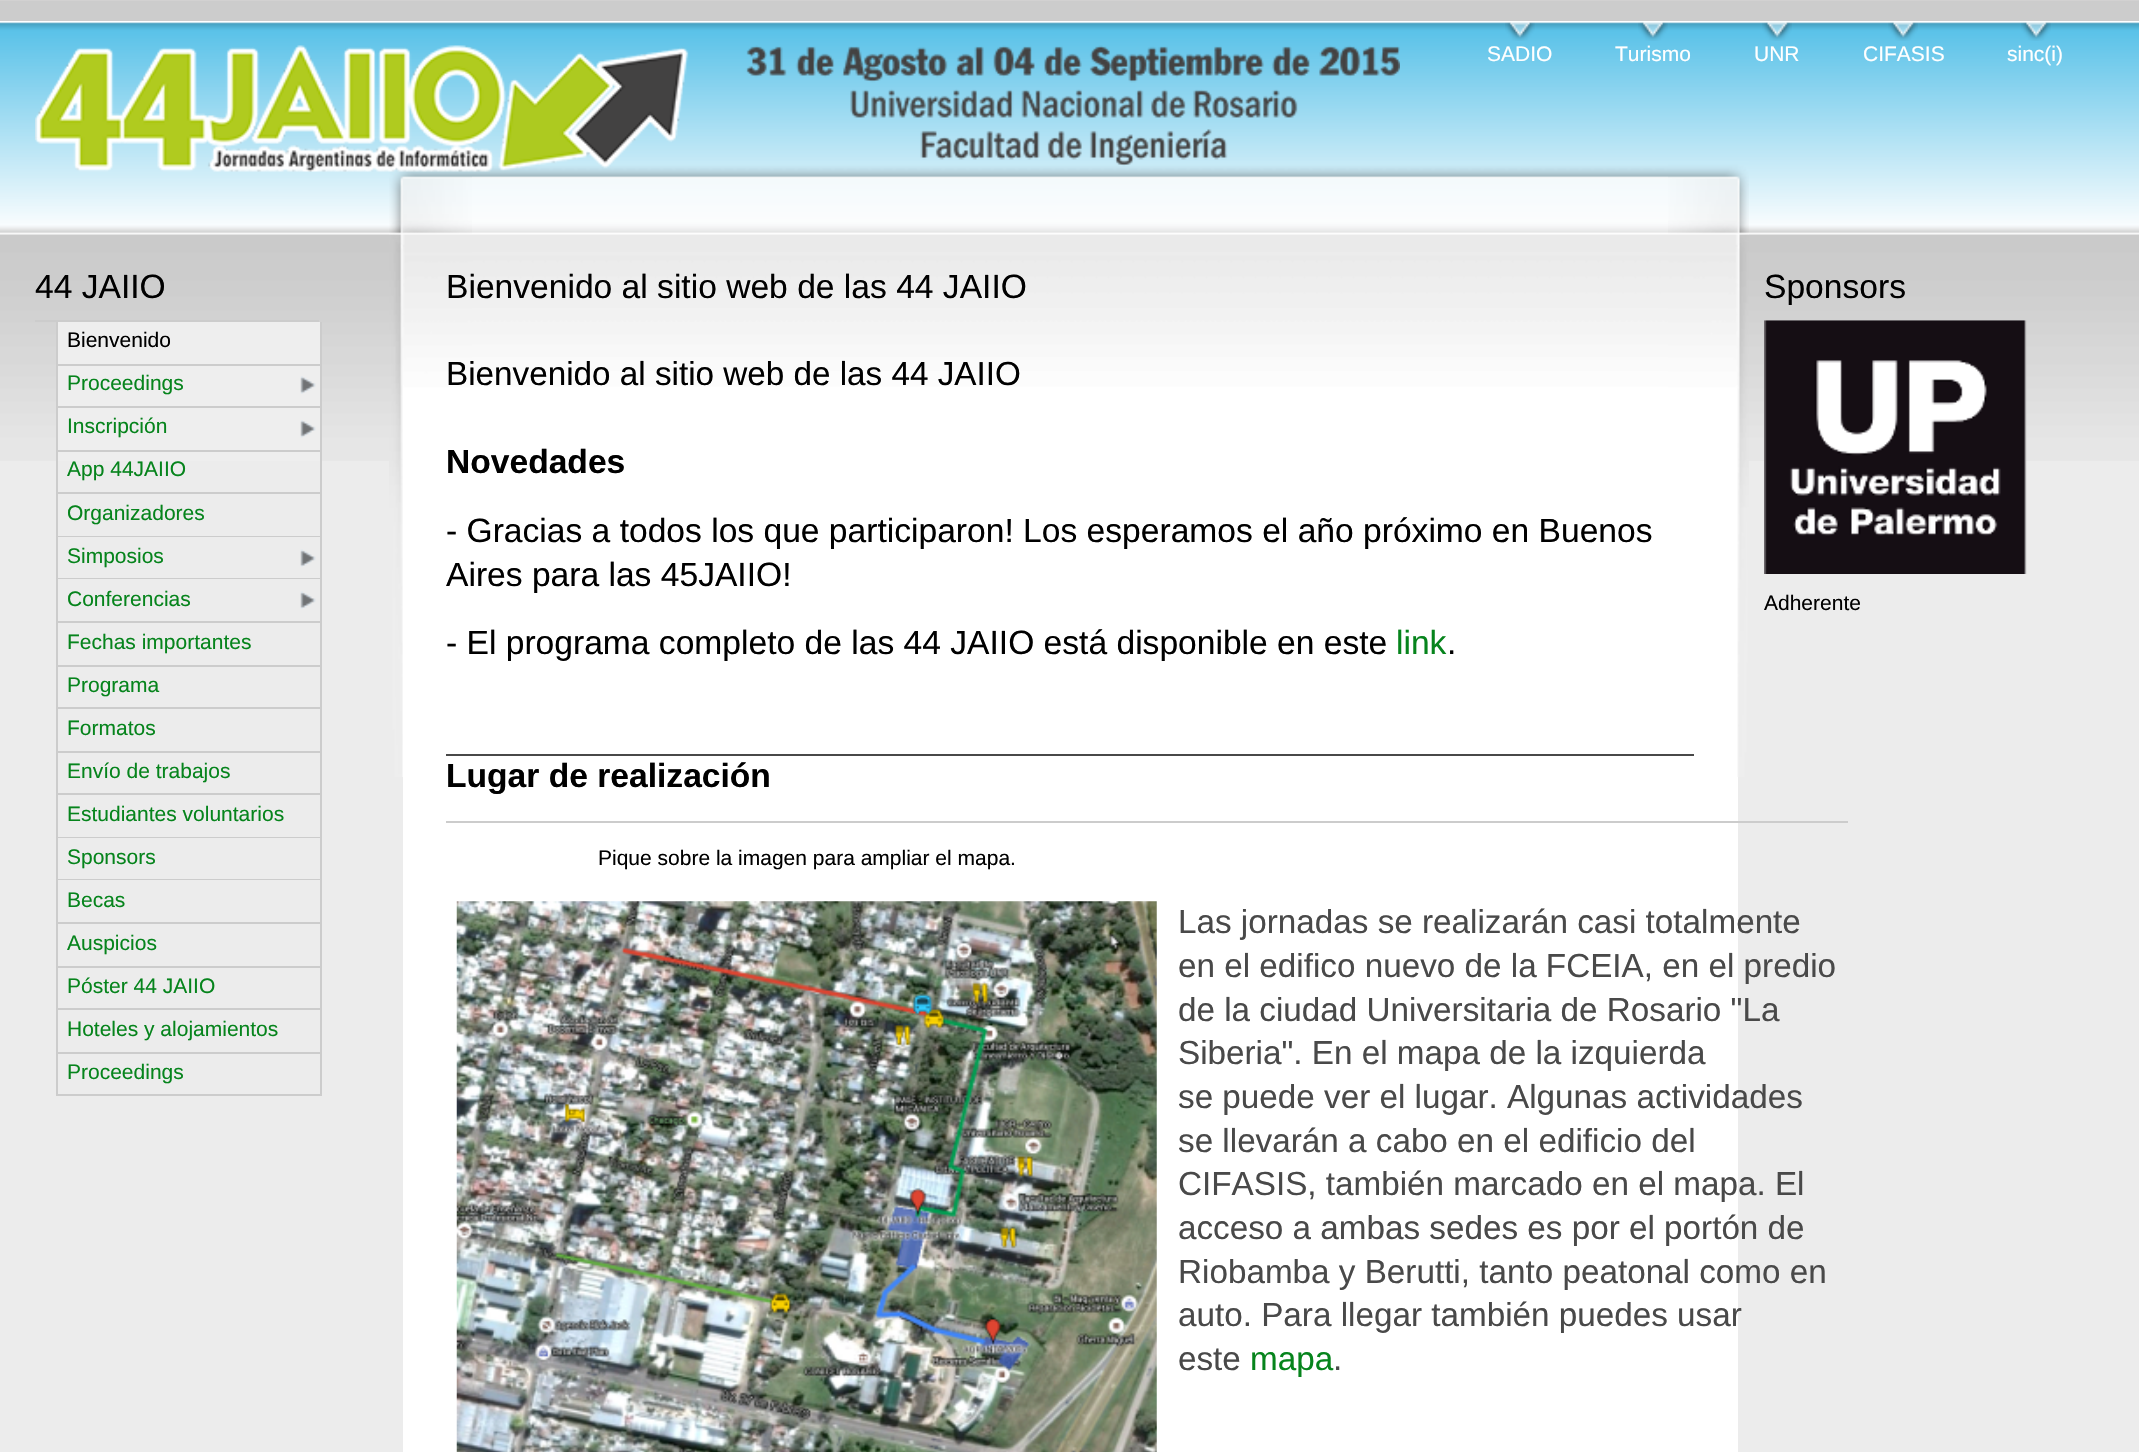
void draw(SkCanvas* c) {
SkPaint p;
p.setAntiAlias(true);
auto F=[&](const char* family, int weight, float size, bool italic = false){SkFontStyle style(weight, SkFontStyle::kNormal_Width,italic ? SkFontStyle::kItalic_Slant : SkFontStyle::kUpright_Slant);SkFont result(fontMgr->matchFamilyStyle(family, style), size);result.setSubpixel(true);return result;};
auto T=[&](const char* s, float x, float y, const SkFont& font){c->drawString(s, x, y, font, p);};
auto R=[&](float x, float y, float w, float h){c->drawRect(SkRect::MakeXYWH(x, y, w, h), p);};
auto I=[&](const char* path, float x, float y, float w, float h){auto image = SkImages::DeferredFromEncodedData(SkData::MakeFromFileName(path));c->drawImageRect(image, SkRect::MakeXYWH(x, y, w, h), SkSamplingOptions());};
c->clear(0xffececec);
p.setColor(0xffd2d1d1);
R(0,0,2139,1);
p.setColor(0xffcccccc);
R(0,1,2139,20);
I("1.png",0,21,2139,440);
I("11.png",472,161,1196,350);
p.setColor(0xffffffff);
R(403,511,1335,941);
I("13.png",389,168,83,609);
I("2.png",35,45,1365,127);
I("3.png",1505,22,30,19);
auto f1 = F("Liberation Sans",400,21);
T("SADIO",1487,61,f1);
I("4.png",1638,22,30,19);
T("Turismo",1615,61,f1);
I("5.png",1762,22,30,19);
T("UNR",1754,61,f1);
I("6.png",1888,22,30,19);
T("CIFASIS",1863,61,f1);
I("7.png",2021,22,30,19);
T("sinc(i)",2007,61,f1);
auto f2 = F("Liberation Sans",400,33.6);
p.setColor(0xff000000);
T("44 JAIIO",35,298,f2);
p.setColor(0xffcccccc);
R(35,320,284,2);
p.setColor(0xffeeeeee);
R(58,322,262,42);
p.setColor(0xffcccccc);
R(320,322,2,774);
R(56,364,266,2);
R(56,322,2,44);
p.setColor(0xff000000);
T("Bienvenido",67,347,f1);
p.setColor(0xffeeeeee);
R(58,366,262,40);
I("8.png",300,376,16,18);
p.setColor(0xffcccccc);
R(56,406,266,2);
R(56,366,2,42);
p.setColor(0xff06841c);
T("Proceedings",67,390,f1);
p.setColor(0xffeeeeee);
R(58,408,262,42);
I("9.png",300,420,16,18);
p.setColor(0xffcccccc);
R(56,450,266,2);
R(56,408,2,44);
p.setColor(0xff06841c);
T("Inscripción",67,433,f1);
p.setColor(0xffeeeeee);
R(58,452,262,9);
p.setColor(0xffcccccc);
R(56,492,266,2);
R(56,452,2,42);
p.setColor(0xff06841c);
T("App 44JAIIO",67,476,f1);
p.setColor(0xffcccccc);
R(56,536,266,1);
R(56,494,2,43);
p.setColor(0xff06841c);
T("Organizadores",67,520,f1);
I("10.png",300,549,16,18);
p.setColor(0xffcccccc);
R(56,578,266,1);
R(56,537,2,42);
p.setColor(0xff06841c);
T("Simposios",67,563,f1);
I("10.png",300,591,16,18);
p.setColor(0xffcccccc);
R(56,621,266,2);
R(56,579,2,44);
p.setColor(0xff06841c);
T("Conferencias",67,606,f1);
p.setColor(0xffcccccc);
R(56,665,266,2);
R(56,623,2,44);
p.setColor(0xff06841c);
T("Fechas importantes",67,649,f1);
p.setColor(0xffcccccc);
R(56,707,266,2);
R(56,667,2,42);
p.setColor(0xff06841c);
T("Programa",67,692,f1);
p.setColor(0xffcccccc);
R(56,751,266,2);
R(56,709,2,44);
p.setColor(0xff06841c);
T("Formatos",67,735,f1);
p.setColor(0xffcccccc);
R(56,793,266,2);
R(56,753,2,42);
p.setColor(0xff06841c);
T("Envío de trabajos",67,778,f1);
p.setColor(0xffcccccc);
R(56,837,266,1);
R(56,795,2,43);
p.setColor(0xff06841c);
T("Estudiantes voluntarios",67,821,f1);
p.setColor(0xffcccccc);
R(56,879,266,1);
R(56,838,2,42);
p.setColor(0xff06841c);
T("Sponsors",67,864,f1);
p.setColor(0xffcccccc);
R(56,922,266,2);
R(56,880,2,44);
p.setColor(0xff06841c);
T("Becas",67,907,f1);
p.setColor(0xffcccccc);
R(56,966,266,2);
R(56,924,2,44);
p.setColor(0xff06841c);
T("Auspicios",67,950,f1);
p.setColor(0xffcccccc);
R(56,1008,266,2);
R(56,968,2,42);
p.setColor(0xff06841c);
T("Póster 44 JAIIO",67,993,f1);
p.setColor(0xffcccccc);
R(56,1052,266,2);
R(56,1010,2,44);
p.setColor(0xff06841c);
T("Hoteles y alojamientos",67,1036,f1);
p.setColor(0xffcccccc);
R(56,1094,266,2);
R(56,1054,2,42);
p.setColor(0xff06841c);
T("Proceedings",67,1079,f1);
I("12.png",1668,161,81,616);
p.setColor(0xff000000);
T("Bienvenido al sitio web de las 44 JAIIO",446,298,f2);
auto f3 = F("Liberation Sans",400,33.25);
T("Bienvenido al sitio web de las 44 JAIIO",446,385,f3);
auto f4 = F("Liberation Sans",700,33.6);
T("Novedades",446,473,f4);
T("- Gracias a todos los que participaron! Los esperamos el año próximo en Buenos",446,542,f2);
T("Aires para las 45JAIIO!",446,586,f2);
T("- El programa completo de las 44 JAIIO está disponible en este",446,654,f2);
p.setColor(0xff06841c);
T("link",1396,654,f2);
p.setColor(0xff000000);
T(".",1447,654,f2);
p.setColor(0xff484848);
R(446,754,1248,2);
p.setColor(0xff000000);
T("Lugar de realización",446,787,f4);
p.setColor(0xffcccccc);
R(446,821,1402,2);
p.setColor(0xff000000);
T("Pique sobre la imagen para ampliar el mapa.",598,865,f1);
I("14.png",456,901,701,551);
p.setColor(0xff494949);
T("Las jornadas se realizarán casi totalmente",1178,933,f3);
T("en el edifico nuevo de la FCEIA, en el predio",1178,977,f3);
T("de la ciudad Universitaria de Rosario \"La",1178,1021,f3);
T("Siberia\". En el mapa de la izquierda",1178,1064,f3);
T("se puede ver el lugar. Algunas actividades",1178,1108,f3);
T("se llevarán a cabo en el edificio del",1178,1152,f3);
T("CIFASIS, también marcado en el mapa. El",1178,1195,f3);
T("acceso a ambas sedes es por el portón de",1178,1239,f3);
T("Riobamba y Berutti, tanto peatonal como en",1178,1283,f3);
T("auto. Para llegar también puedes usar",1178,1326,f3);
T("este",1178,1370,f3);
p.setColor(0xff06841c);
T("mapa",1250,1370,f3);
p.setColor(0xff494949);
T(".",1333,1370,f3);
p.setColor(0xff000000);
T("Sponsors",1764,298,f2);
I("15.png",1764,320,263,254);
T("Adherente",1764,610,f1);
}
